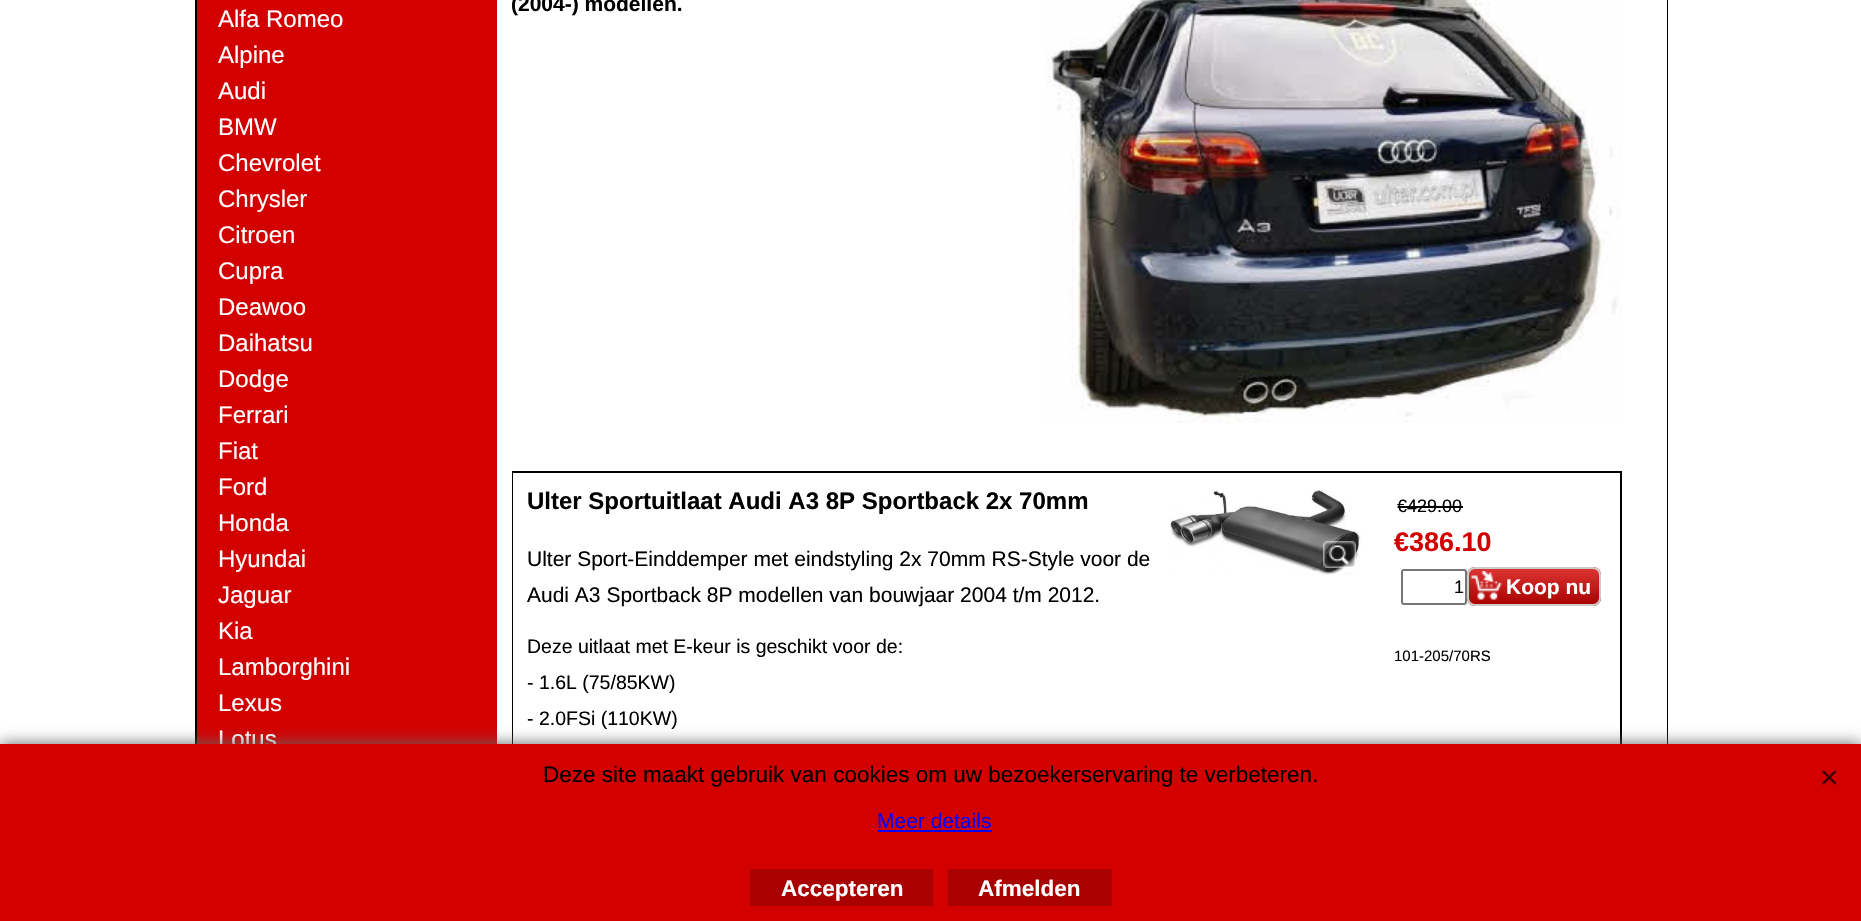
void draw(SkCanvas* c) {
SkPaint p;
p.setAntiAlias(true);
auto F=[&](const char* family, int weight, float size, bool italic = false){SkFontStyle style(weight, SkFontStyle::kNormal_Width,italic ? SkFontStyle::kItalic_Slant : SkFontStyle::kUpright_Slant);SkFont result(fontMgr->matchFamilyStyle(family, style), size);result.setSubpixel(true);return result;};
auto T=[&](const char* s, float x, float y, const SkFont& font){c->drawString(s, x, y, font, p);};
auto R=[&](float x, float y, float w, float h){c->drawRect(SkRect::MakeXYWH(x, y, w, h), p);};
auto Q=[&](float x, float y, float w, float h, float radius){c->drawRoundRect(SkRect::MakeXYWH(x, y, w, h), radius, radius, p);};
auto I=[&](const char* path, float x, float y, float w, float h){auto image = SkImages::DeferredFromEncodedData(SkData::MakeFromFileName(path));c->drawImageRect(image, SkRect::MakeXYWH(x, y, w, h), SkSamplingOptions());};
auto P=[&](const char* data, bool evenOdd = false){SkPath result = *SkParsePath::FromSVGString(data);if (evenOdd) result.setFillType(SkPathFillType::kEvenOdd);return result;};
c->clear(0xffffffff);
p.setStroke(true);
p.setStrokeWidth(2);
p.setColor(0xff000000);
c->drawRect(SkRect::MakeXYWH(196,-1,1471,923),p);
p.setStroke(false);
p.setColor(0xffffffff);
R(1666,0,1,744);
p.setColor(0xffd30000);
R(197,0,7,744);
R(204,0,293,2);
R(204,2,293,36);
auto f1 = F("Liberation Sans",400,24);
p.setColor(0xffffffff);
T("Alfa Romeo",218,27,f1);
p.setColor(0xffd30000);
R(204,38,293,36);
p.setColor(0xffffffff);
T("Alpine",218,63,f1);
p.setColor(0xffd30000);
R(204,74,293,36);
p.setColor(0xffffffff);
T("Audi",218,99,f1);
p.setColor(0xffd30000);
R(204,110,293,36);
p.setColor(0xffffffff);
T("BMW",218,135,f1);
p.setColor(0xffd30000);
R(204,146,293,36);
p.setColor(0xffffffff);
T("Chevrolet",218,171,f1);
p.setColor(0xffd30000);
R(204,182,293,36);
p.setColor(0xffffffff);
T("Chrysler",218,207,f1);
p.setColor(0xffd30000);
R(204,218,293,36);
p.setColor(0xffffffff);
T("Citroen",218,243,f1);
p.setColor(0xffd30000);
R(204,254,293,36);
p.setColor(0xffffffff);
T("Cupra",218,279,f1);
p.setColor(0xffd30000);
R(204,290,293,36);
p.setColor(0xffffffff);
T("Deawoo",218,315,f1);
p.setColor(0xffd30000);
R(204,326,293,36);
p.setColor(0xffffffff);
T("Daihatsu",218,351,f1);
p.setColor(0xffd30000);
R(204,362,293,36);
p.setColor(0xffffffff);
T("Dodge",218,387,f1);
p.setColor(0xffd30000);
R(204,398,293,36);
p.setColor(0xffffffff);
T("Ferrari",218,423,f1);
p.setColor(0xffd30000);
R(204,434,293,36);
p.setColor(0xffffffff);
T("Fiat",218,459,f1);
p.setColor(0xffd30000);
R(204,470,293,36);
p.setColor(0xffffffff);
T("Ford",218,495,f1);
p.setColor(0xffd30000);
R(204,506,293,36);
p.setColor(0xffffffff);
T("Honda",218,531,f1);
p.setColor(0xffd30000);
R(204,542,293,36);
p.setColor(0xffffffff);
T("Hyundai",218,567,f1);
p.setColor(0xffd30000);
R(204,578,293,36);
p.setColor(0xffffffff);
T("Jaguar",218,603,f1);
p.setColor(0xffd30000);
R(204,614,293,36);
p.setColor(0xffffffff);
T("Kia",218,639,f1);
p.setColor(0xffd30000);
R(204,650,293,36);
p.setColor(0xffffffff);
T("Lamborghini",218,675,f1);
p.setColor(0xffd30000);
R(204,686,293,36);
p.setColor(0xffffffff);
T("Lexus",218,711,f1);
p.setColor(0xffd30000);
R(204,722,293,22);
p.setColor(0xffffffff);
T("Lotus",218,747,f1);
auto f2 = F("Liberation Sans",700,21);
p.setColor(0xff000000);
T("(2004-) modellen.",511,11,f2);
I("1.png",1045,0,577,423);
p.setStroke(true);
c->drawRect(SkRect::MakeXYWH(513,472,1108,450),p);
p.setStroke(false);
p.setColor(0xffffffff);
R(513,473,1,271);
auto f3 = F("Liberation Sans",700,24);
p.setColor(0xff000000);
T("Ulter Sportuitlaat Audi A3 8P Sportback 2x 70mm",527,509,f3);
I("2.png",1170,490,191,86);
I("3.png",1323,541,33,27);
auto f4 = F("Liberation Sans",400,21);
T("Ulter Sport-Einddemper met eindstyling 2x 70mm RS-Style voor de",527,566,f4);
T("Audi A3 Sportback 8P modellen van bouwjaar 2004 t/m 2012.",527,602,f4);
auto f5 = F("Liberation Sans",400,19.5);
T("Deze uitlaat met E-keur is geschikt voor de:",527,653,f5);
T("- 1.6L (75/85KW)",527,689,f5);
T("- 2.0FSi (110KW)",527,725,f5);
auto f6 = F("Liberation Sans",400,18);
T("€429.00",1397,512,f6);
R(1398,506,65,2);
auto f7 = F("Liberation Sans",700,27);
p.setColor(0xffd30000);
T("€386.10",1394,551,f7);
p.setStroke(true);
p.setColor(0xff767676);
c->drawRoundRect(SkRect::MakeXYWH(1402,570,64,34),2,2,p);
p.setStroke(false);
p.setColor(0xff000000);
T("1",1454,593,f6);
p.setColor(0xffd30000);
Q(1467,567,134,39,8);
c->save();
c->clipPath(P("M1475 567h118c4.5 0 8 3.5 8 8v23c0 4.5-3.5 8-8 8h-118c-4.5 0-8-3.5-8-8v-23c0-4.5 3.5-8 8-8z"),true);
{
const SkColor colors[] = {0x33ffffff,0x33000000};
const float stops[] = {0,1};
const SkPoint ends[] = {{1469,569}, {1469,605}};
p.setShader(SkGradientShader::MakeLinear(ends, colors, stops, 2, SkTileMode::kClamp));
p.setAlpha(255);
}
R(1467,569,134,36);
c->restore();
p.setStroke(true);
p.setShader(nullptr);
p.setColor(0xffcccccc);
c->drawRoundRect(SkRect::MakeXYWH(1468,568,132,37),7,7,p);
I("4.png",1471,571,31,29);
p.setStroke(false);
p.setColor(0xffffffff);
T("Koop nu",1506,594,f2);
auto f8 = F("Liberation Sans",400,15);
p.setColor(0xff000000);
T("101-205/70RS",1394,661,f8);
p.setColor(0xff666666);
p.setMaskFilter(SkMaskFilter::MakeBlur(kNormal_SkBlurStyle, 7.5));
c->drawRect(SkRect::MakeXYWH(0,744,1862,177),p);
p.setMaskFilter(nullptr);
p.setColor(0xffd30000);
R(0,744,1861,177);
auto f9 = F("Liberation Sans",400,22.5);
p.setColor(0xff000000);
T("Deze site maakt gebruik van cookies om uw bezoekerservaring te verbeteren.",543,782,f9);
p.setColor(0xff0000ff);
T("Meer details",877,828,f4);
R(878,830,114,2);
I("5.png",1822,770,15,15);
p.setColor(0xffa90000);
R(750,869,183,37);
auto f10 = F("Liberation Sans",700,22.5);
p.setColor(0xffffffff);
T("Accepteren",781,896,f10);
p.setColor(0xffa90000);
R(948,869,164,37);
p.setColor(0xffffffff);
T("Afmelden",978,896,f10);
}
